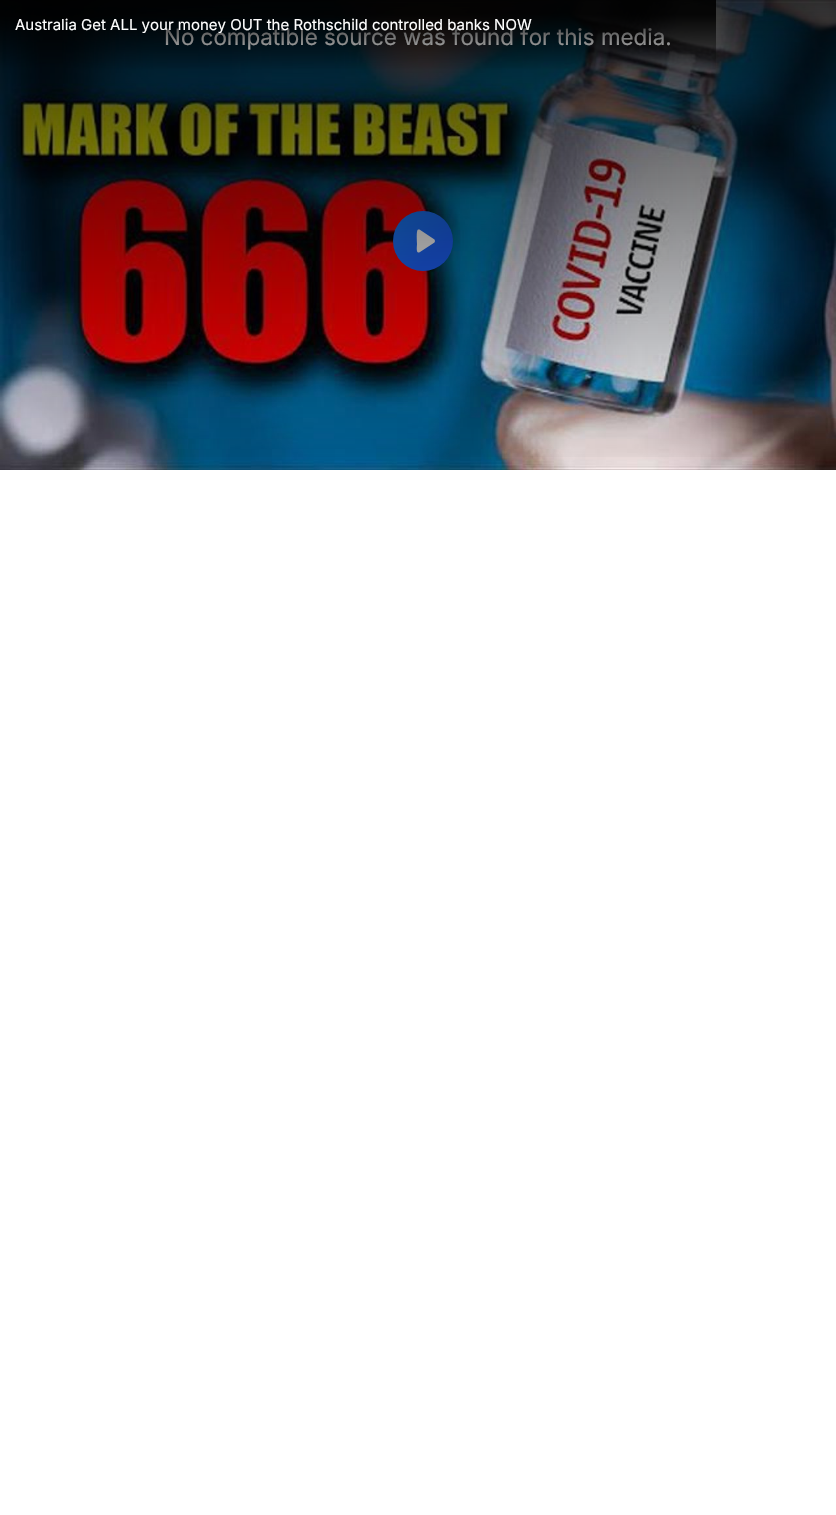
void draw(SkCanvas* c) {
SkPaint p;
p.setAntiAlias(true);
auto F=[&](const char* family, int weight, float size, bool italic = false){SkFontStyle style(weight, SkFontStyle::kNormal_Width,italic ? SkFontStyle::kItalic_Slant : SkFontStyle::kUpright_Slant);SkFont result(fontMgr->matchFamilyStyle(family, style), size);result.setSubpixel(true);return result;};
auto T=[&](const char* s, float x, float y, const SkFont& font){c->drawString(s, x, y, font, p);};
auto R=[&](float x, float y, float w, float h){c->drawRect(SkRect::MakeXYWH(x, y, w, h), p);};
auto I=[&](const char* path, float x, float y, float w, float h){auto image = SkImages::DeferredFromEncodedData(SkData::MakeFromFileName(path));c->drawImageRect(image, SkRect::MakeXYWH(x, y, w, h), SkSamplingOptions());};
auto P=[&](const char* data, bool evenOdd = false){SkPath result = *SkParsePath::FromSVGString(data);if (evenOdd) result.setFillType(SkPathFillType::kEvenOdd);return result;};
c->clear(0xffffffff);
I("1.png",0,0,836,470);
{
const SkColor colors[] = {0xff1a7efa,0xff1c61f9};
const float stops[] = {0,1};
const SkPoint ends[] = {{398,210}, {434,254}};
p.setShader(SkGradientShader::MakeLinear(ends, colors, stops, 2, SkTileMode::kClamp));
p.setAlpha(255);
}
c->drawCircle(423,241,30,p);
p.setShader(nullptr);
p.setColor(0xffffffff);
c->drawPath(P("M420 252c-4.5 3-3-6.5-3-8c0-2-1-13.5 1-14.5h1.5l15 10l.5 1.5l-.5 1.5z"),p);
{
const SkColor colors[] = {0xcc000000,0x00000000};
const float stops[] = {0,1};
const SkPoint ends[] = {{418,0}, {418,470}};
p.setShader(SkGradientShader::MakeLinear(ends, colors, stops, 2, SkTileMode::kClamp));
p.setAlpha(255);
}
R(0,0,836,457);
auto f1 = F("Inter",400,22.4);
p.setShader(nullptr);
p.setColor(0xffffffff);
T("No compatible source was found for this media.",164,45,f1);
{
const SkColor colors[] = {0xe6000000,0x00000000};
const float stops[] = {.2,1};
const SkPoint ends[] = {{358,0}, {358,71}};
p.setShader(SkGradientShader::MakeLinear(ends, colors, stops, 2, SkTileMode::kClamp));
p.setAlpha(255);
}
R(0,0,716,69);
auto f2 = F("Inter",400,15);
p.setShader(nullptr);
p.setColor(0xffffffff);
T("Australia Get ALL your money OUT the Rothschild controlled banks NOW",15,30,f2);
}
